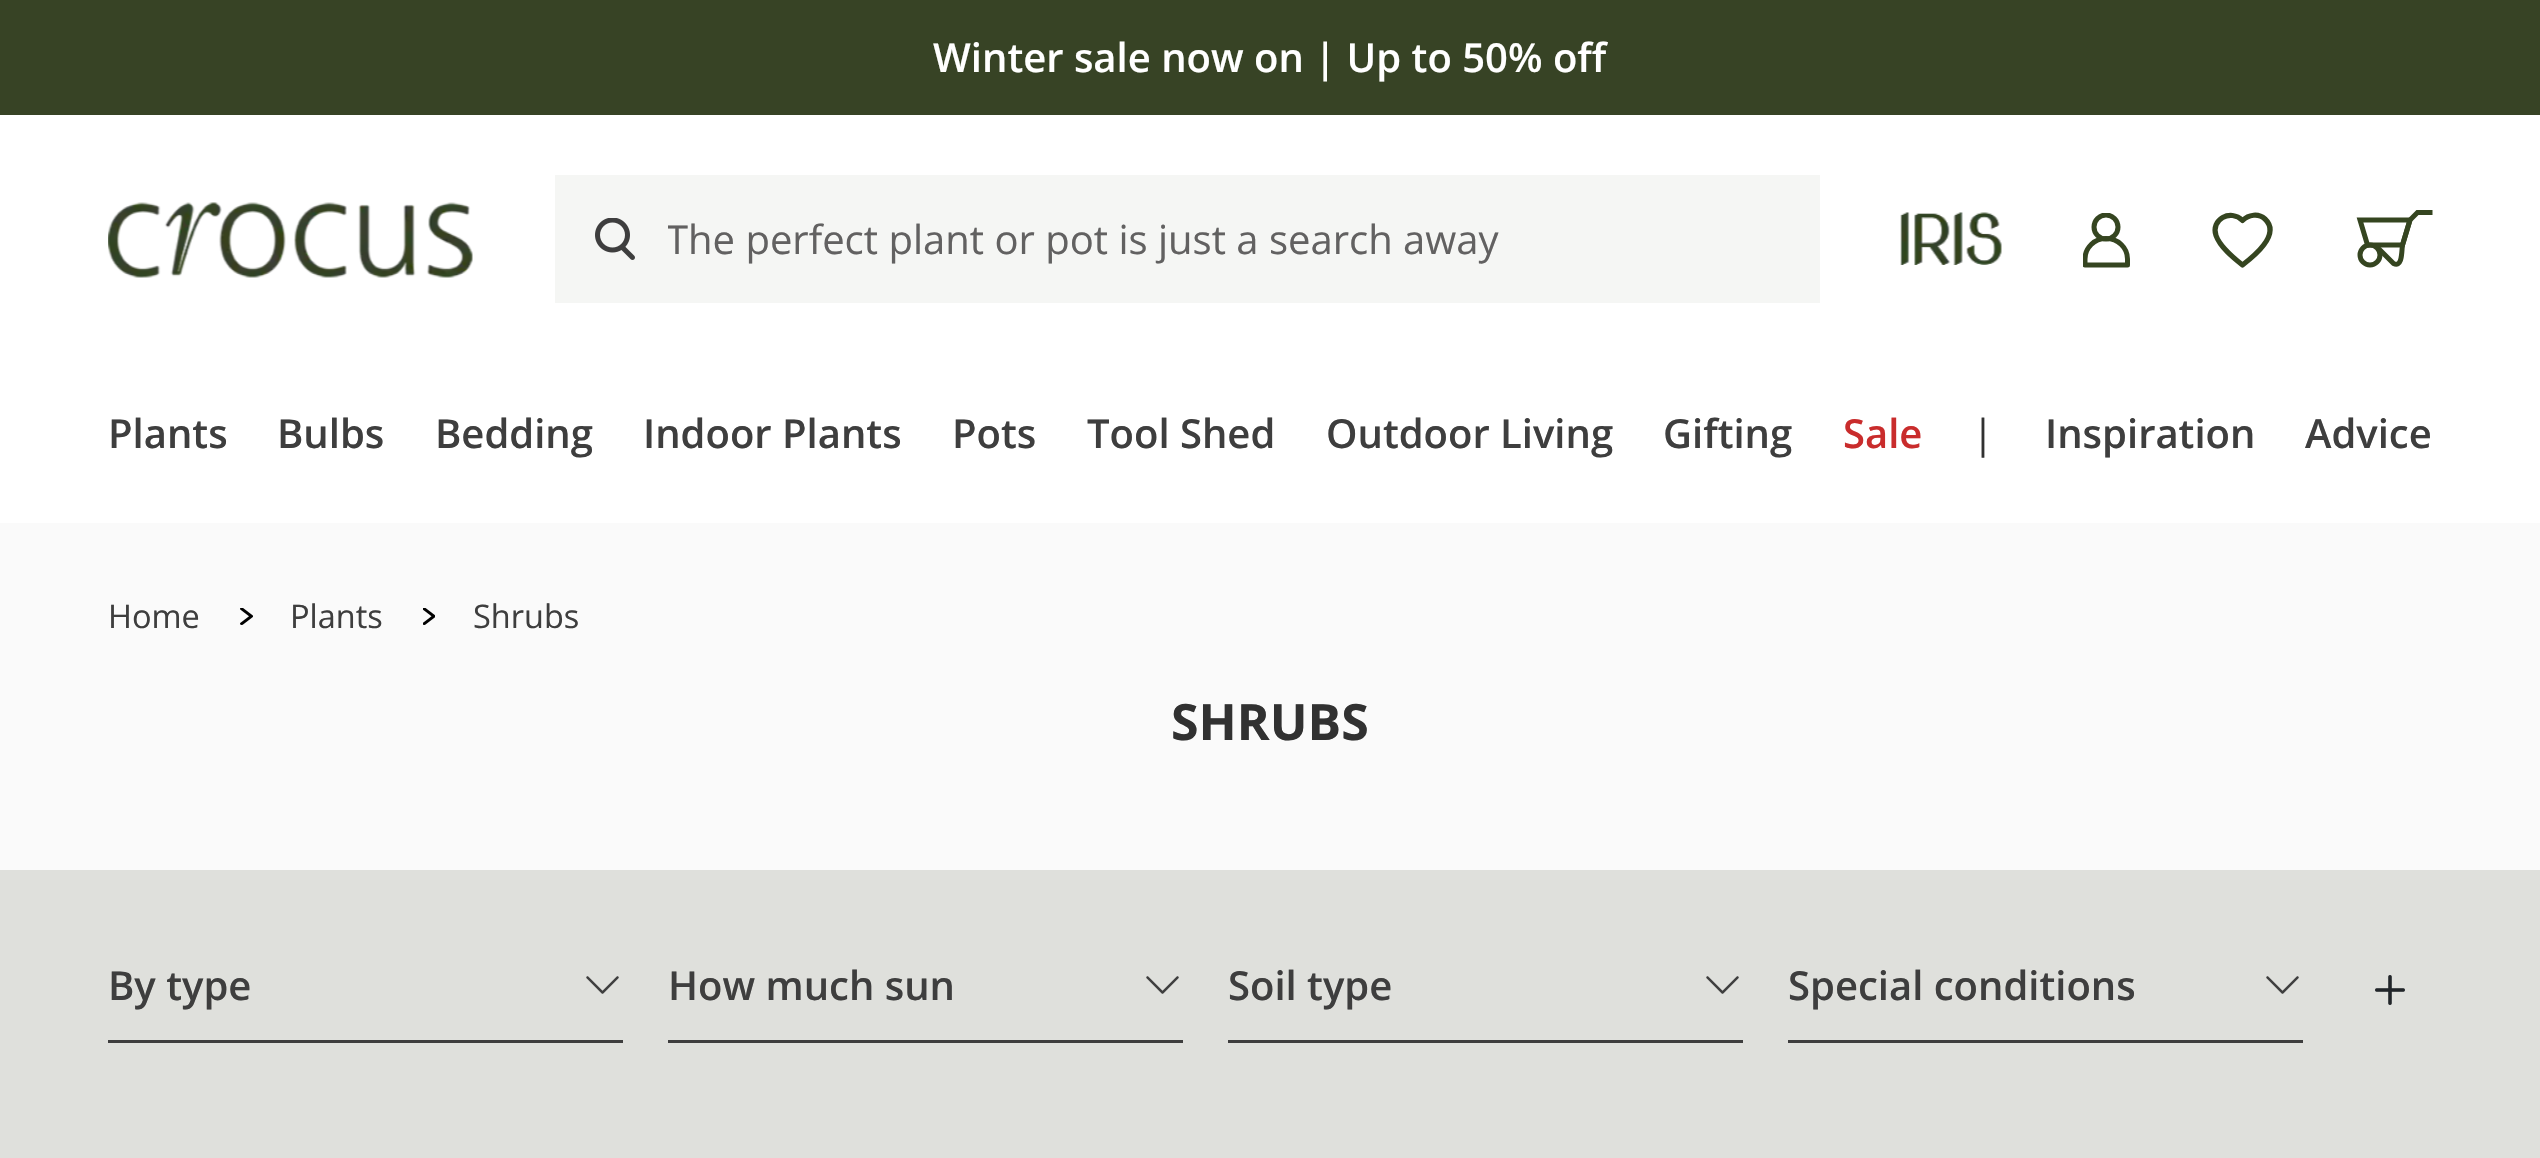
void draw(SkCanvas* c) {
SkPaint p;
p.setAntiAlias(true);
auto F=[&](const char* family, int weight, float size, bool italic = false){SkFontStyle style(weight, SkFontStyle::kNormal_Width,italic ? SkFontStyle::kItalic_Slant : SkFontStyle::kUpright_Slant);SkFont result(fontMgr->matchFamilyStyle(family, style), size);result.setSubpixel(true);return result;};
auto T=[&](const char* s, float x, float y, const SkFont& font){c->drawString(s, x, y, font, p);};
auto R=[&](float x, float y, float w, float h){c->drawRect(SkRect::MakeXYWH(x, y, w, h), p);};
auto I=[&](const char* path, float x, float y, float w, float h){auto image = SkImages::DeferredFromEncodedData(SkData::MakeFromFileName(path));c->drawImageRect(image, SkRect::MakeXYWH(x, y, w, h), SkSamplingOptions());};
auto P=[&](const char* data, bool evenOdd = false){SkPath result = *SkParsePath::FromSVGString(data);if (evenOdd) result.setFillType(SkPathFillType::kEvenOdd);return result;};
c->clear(0xfffafafa);
p.setColor(0xffffffff);
R(0,115,2540,408);
p.setColor(0xff374325);
R(0,0,2540,115);
auto f1 = F("Open Sans",600,40);
p.setColor(0xffffffff);
T("Winter sale now on | Up to 50% off",933,72,f1);
I("1.png",108,202,365,76);
p.setColor(0xfff5f6f4);
R(555,175,1265,128);
I("2.png",595,218,40,42);
c->save();
c->clipRect(SkRect::MakeXYWH(668,213,1077,55));
auto f2 = F("Open Sans",400,40);
p.setColor(0xff626161);
T("The perfect plant or pot is just a search away",666,254,f2);
c->restore();
I("3.png",1900,212,102,53);
c->save();
c->clipRect(SkRect::MakeXYWH(2083,213,47,55));
p.setStroke(true);
p.setStrokeWidth(5);
p.setStrokeCap(SkPaint::kRound_Cap);
p.setStrokeJoin(SkPaint::kRound_Join);
p.setColor(0xff354520);
c->drawPath(P("M2106 238.5c12 0 21.5 9 21.5 20.5v6h-42.5v-6c0-11.5 9.5-20.5 21-20.5z"),p);
p.setStrokeCap(SkPaint::kButt_Cap);
p.setStrokeJoin(SkPaint::kMiter_Join);
c->drawCircle(2106,227,12,p);
c->restore();
p.setStrokeWidth(5.2);
p.setStrokeCap(SkPaint::kRound_Cap);
p.setStrokeJoin(SkPaint::kRound_Join);
c->drawPath(P("M2265 219c-6.5-6-16.5-4.5-22.5 1.5c-12-12-32-1-26.5 15c4 11.5 17 22 26.5 29.5c10.5-8 39-30.5 22.5-46z"),p);
p.setStrokeWidth(5);
p.setStrokeCap(SkPaint::kButt_Cap);
p.setStrokeJoin(SkPaint::kMiter_Join);
c->drawPath(P("M2402.5 245h-35l-7.5-25h50z"),p);
c->drawPath(P("M2375 245l18.5 18.5c9.5 5 8-15 9-18.5l7.5-25l7.5-7.5h15"),p);
c->drawCircle(2370,255,10,p);
p.setStroke(false);
p.setColor(0xff3e3e3e);
T("Plants",108,448,f1);
T("Bulbs",277,448,f1);
T("Bedding",435,448,f1);
T("Indoor Plants",643,448,f1);
T("Pots",952,448,f1);
T("Tool Shed",1087,448,f1);
T("Outdoor Living",1326,448,f1);
T("Gifting",1663,448,f1);
p.setColor(0xffc92c2c);
T("Sale",1843,448,f1);
p.setColor(0xff313131);
T("|",1972,448,f2);
p.setColor(0xff3e3e3e);
T("Inspiration",2045,448,f1);
T("Advice",2305,448,f1);
auto f3 = F("Open Sans",400,32.5);
T("Home",108,628,f3);
I("4.png",240,608,13,17);
T("Plants",290,628,f3);
I("5.png",423,608,12,17);
T("Shrubs",473,628,f3);
auto f4 = F("Open Sans",700,50);
p.setColor(0xff313131);
T("SHRUBS",1171,740,f4);
p.setColor(0xffdfe0dc);
R(0,870,2540,288);
p.setColor(0xff3e3e3e);
R(108,1040,515,3);
T("By type",108,1000,f1);
I("6.png",586,976,33,18);
R(668,1040,515,3);
T("How much sun",668,1000,f1);
I("6.png",1146,976,33,18);
R(1228,1040,515,3);
T("Soil type",1228,1000,f1);
I("6.png",1706,976,33,18);
R(1788,1040,515,3);
T("Special conditions",1788,1000,f1);
I("6.png",2266,976,33,18);
I("7.png",2375,975,30,30);
}
